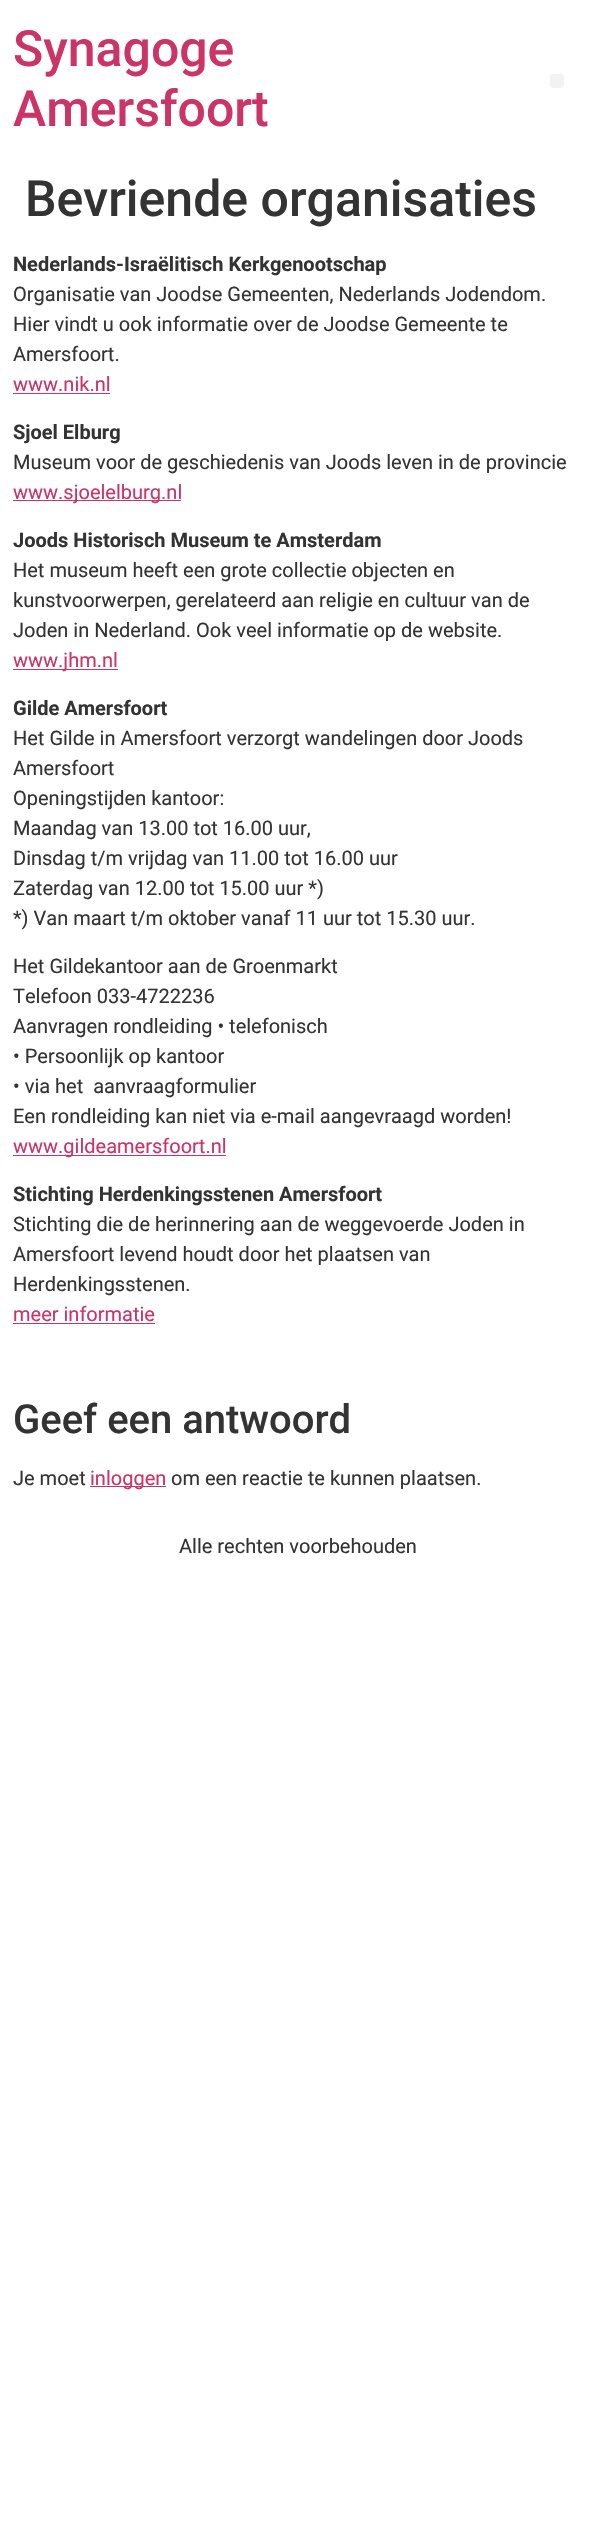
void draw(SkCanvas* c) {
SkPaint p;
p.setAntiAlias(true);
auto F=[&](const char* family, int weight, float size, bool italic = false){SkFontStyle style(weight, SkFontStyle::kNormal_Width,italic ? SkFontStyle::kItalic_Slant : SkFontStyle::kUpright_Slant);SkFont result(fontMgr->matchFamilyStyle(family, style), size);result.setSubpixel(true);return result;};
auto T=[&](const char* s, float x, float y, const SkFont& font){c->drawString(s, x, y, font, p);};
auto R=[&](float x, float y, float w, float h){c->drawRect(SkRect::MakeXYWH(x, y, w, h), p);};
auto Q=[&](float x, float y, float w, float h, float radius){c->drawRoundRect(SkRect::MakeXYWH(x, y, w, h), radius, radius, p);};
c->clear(0xffffffff);
auto f1 = F("Roboto",500,50);
p.setColor(0xffcc3366);
T("Synagoge",13,66,f1);
T("Amersfoort",13,126,f1);
p.setColor(0xfff2f2f2);
Q(550,74,14,14,4);
p.setColor(0xff333333);
T("Bevriende organisaties",25,216,f1);
auto f2 = F("Roboto",700,20);
T("Nederlands-Israëlitisch Kerkgenootschap",13,271,f2);
auto f3 = F("Roboto",400,20);
T("Organisatie van Joodse Gemeenten, Nederlands Jodendom.",13,301,f3);
T("Hier vindt u ook informatie over de Joodse Gemeente te",13,331,f3);
T("Amersfoort.",13,361,f3);
p.setColor(0xffcc3366);
T("www.nik.nl",13,391,f3);
R(13,393,97,1);
p.setColor(0xff333333);
T("Sjoel Elburg",13,439,f2);
T("Museum voor de geschiedenis van Joods leven in de provincie",13,469,f3);
p.setColor(0xffcc3366);
R(13,500,168,1);
T("www.sjoelelburg.nl",13,499,f3);
p.setColor(0xff333333);
T("Joods Historisch Museum te Amsterdam",13,547,f2);
T("Het museum heeft een grote collectie objecten en",13,577,f3);
T("kunstvoorwerpen, gerelateerd aan religie en cultuur van de",13,607,f3);
T("Joden in Nederland. Ook veel informatie op de website.",13,637,f3);
p.setColor(0xffcc3366);
R(13,669,105,1);
T("www.jhm.nl",13,667,f3);
p.setColor(0xff333333);
T("Gilde Amersfoort",13,715,f2);
T("Het Gilde in Amersfoort verzorgt wandelingen door Joods",13,745,f3);
T("Amersfoort",13,775,f3);
T("Openingstijden kantoor:",13,805,f3);
T("Maandag van 13.00 tot 16.00 uur,",13,835,f3);
T("Dinsdag t/m vrijdag van 11.00 tot 16.00 uur",13,865,f3);
T("Zaterdag van 12.00 tot 15.00 uur *)",13,895,f3);
T("*) Van maart t/m oktober vanaf 11 uur tot 15.30 uur.",13,925,f3);
T("Het Gildekantoor aan de Groenmarkt",13,973,f3);
T("Telefoon 033-4722236",13,1003,f3);
T("Aanvragen rondleiding • telefonisch",13,1033,f3);
T("• Persoonlijk op kantoor",13,1063,f3);
T("• via het  aanvraagformulier",13,1093,f3);
T("Een rondleiding kan niet via e-mail aangevraagd worden!",13,1123,f3);
p.setColor(0xffcc3366);
R(13,1155,213,1);
T("www.gildeamersfoort.nl",13,1153,f3);
p.setColor(0xff333333);
T("Stichting Herdenkingsstenen Amersfoort",13,1201,f2);
T("Stichting die de herinnering aan de weggevoerde Joden in",13,1231,f3);
T("Amersfoort levend houdt door het plaatsen van",13,1261,f3);
T("Herdenkingsstenen.",13,1291,f3);
p.setColor(0xffcc3366);
T("meer informatie",13,1321,f3);
R(13,1323,142,1);
auto f4 = F("Roboto",500,40);
p.setColor(0xff333333);
T("Geef een antwoord",13,1433,f4);
T("Je moet",13,1485,f3);
p.setColor(0xffcc3366);
R(90,1486,76,1);
T("inloggen",90,1485,f3);
p.setColor(0xff333333);
T("om een reactie te kunnen plaatsen.",171,1485,f3);
T("Alle rechten voorbehouden",179,1553,f3);
}
